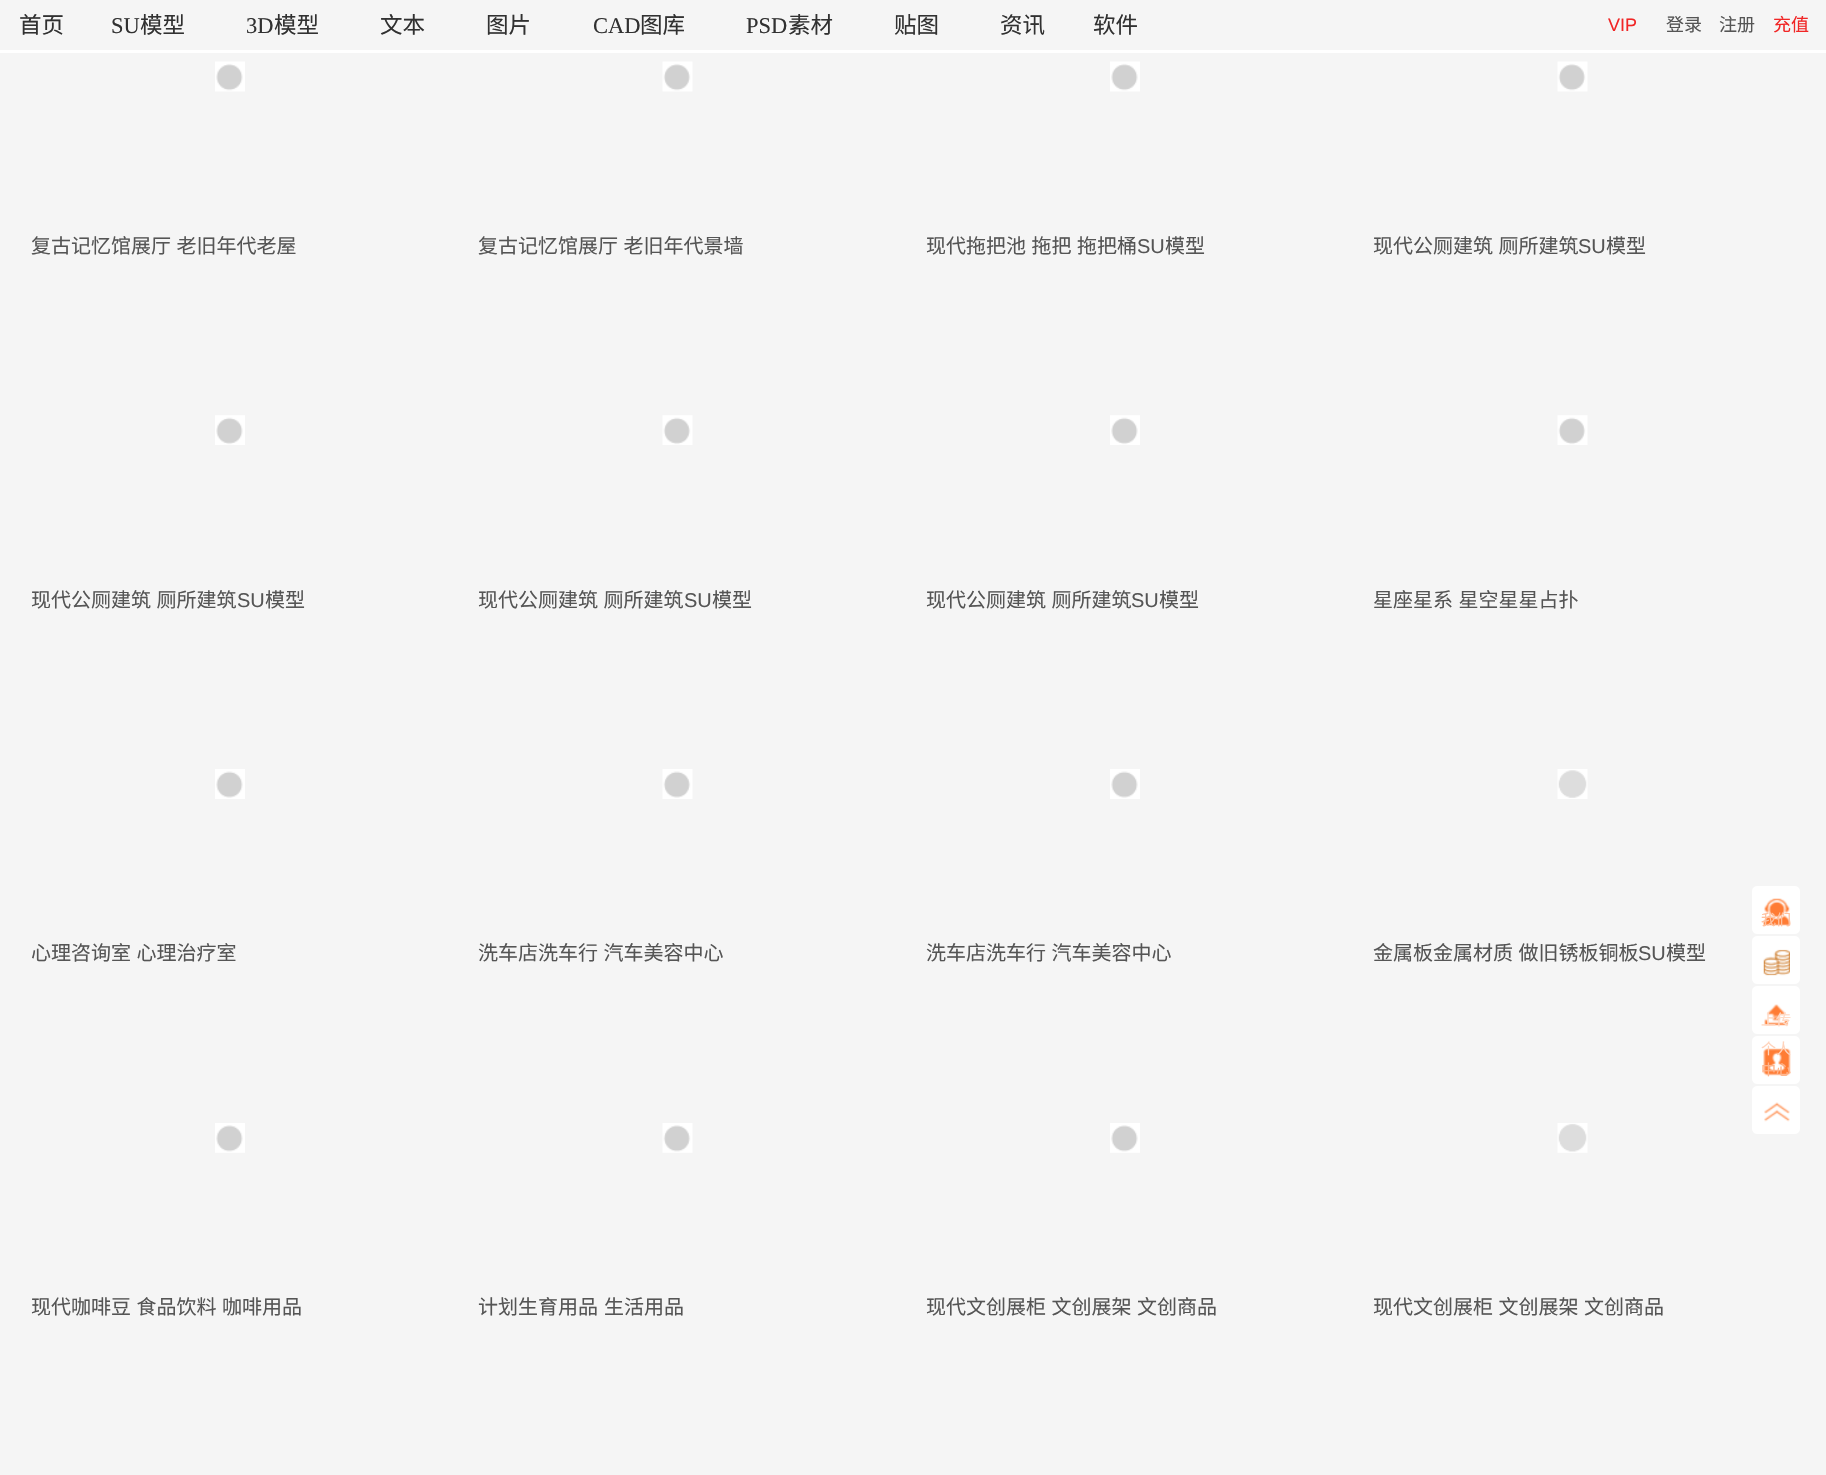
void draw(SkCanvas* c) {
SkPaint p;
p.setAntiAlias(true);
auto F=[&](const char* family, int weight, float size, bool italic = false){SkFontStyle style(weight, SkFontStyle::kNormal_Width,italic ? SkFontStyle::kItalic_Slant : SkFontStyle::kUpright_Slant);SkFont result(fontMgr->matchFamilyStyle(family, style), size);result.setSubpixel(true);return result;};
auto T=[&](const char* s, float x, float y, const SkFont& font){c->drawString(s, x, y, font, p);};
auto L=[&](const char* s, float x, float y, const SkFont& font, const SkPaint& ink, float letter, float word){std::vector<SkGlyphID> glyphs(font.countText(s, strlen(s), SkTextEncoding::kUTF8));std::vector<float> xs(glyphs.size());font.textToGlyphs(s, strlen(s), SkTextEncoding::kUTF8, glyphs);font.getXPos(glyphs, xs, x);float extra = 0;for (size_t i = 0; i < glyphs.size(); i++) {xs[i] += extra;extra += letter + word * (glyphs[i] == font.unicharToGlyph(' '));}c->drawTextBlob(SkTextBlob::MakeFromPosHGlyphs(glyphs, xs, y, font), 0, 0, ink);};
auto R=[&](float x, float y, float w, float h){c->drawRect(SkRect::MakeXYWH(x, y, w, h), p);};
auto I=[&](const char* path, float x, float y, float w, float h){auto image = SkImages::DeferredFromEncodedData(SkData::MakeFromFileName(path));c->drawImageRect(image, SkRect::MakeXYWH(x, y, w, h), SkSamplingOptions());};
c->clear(0xfff5f5f5);
p.setColor(0xffffffff);
R(0,50,1826,3);
auto f1 = F("Noto Sans CJK SC",400,22.5);
p.setColor(0xff313131);
T("首页",19,33,f1);
auto f2 = F("Liberation Serif",400,22.5);
T("SU",111,33,f2);
T("模型",140,33,f1);
T("3D",246,33,f2);
T("模型",274,33,f1);
T("文本",380,33,f1);
T("图片",486,33,f1);
T("CAD",593,33,f2);
T("图库",640,33,f1);
T("PSD",746,33,f2);
T("素材",788,33,f1);
T("贴图",894,33,f1);
T("资讯",1000,33,f1);
T("软件",1093,33,f1);
auto f3 = F("Liberation Sans",400,18);
p.setColor(0xfff12626);
T("VIP",1608,31,f3);
auto f4 = F("Noto Sans CJK SC",400,18);
p.setColor(0xff555555);
T("登录",1666,31,f4);
T("注册",1719,31,f4);
p.setColor(0xfff12626);
T("充值",1773,31,f4);
I("1.png",215,61,30,31);
auto f5 = F("Noto Sans CJK SC",400,20);
p.setColor(0xff555555);
L("复古记忆馆展厅 老旧年代老屋",31,253,f5,p,0,1);
I("2.png",662,61,31,31);
L("复古记忆馆展厅 老旧年代景墙",478,253,f5,p,0,1);
I("3.png",1110,61,30,31);
L("现代拖把池 拖把 拖把桶",926,253,f5,p,0,1);
auto f6 = F("Liberation Sans",400,20);
T("SU",1137,253,f6);
T("模型",1165,253,f5);
I("4.png",1557,61,31,31);
L("现代公厕建筑 厕所建筑",1373,253,f5,p,0,1);
T("SU",1578,253,f6);
T("模型",1606,253,f5);
I("5.png",215,415,30,30);
L("现代公厕建筑 厕所建筑",31,607,f5,p,0,1);
T("SU",237,607,f6);
T("模型",265,607,f5);
I("6.png",662,415,31,30);
L("现代公厕建筑 厕所建筑",478,607,f5,p,0,1);
T("SU",684,607,f6);
T("模型",712,607,f5);
I("7.png",1110,415,30,30);
L("现代公厕建筑 厕所建筑",926,607,f5,p,0,1);
T("SU",1131,607,f6);
T("模型",1159,607,f5);
I("8.png",1557,415,31,30);
L("星座星系 星空星星占扑",1373,607,f5,p,0,1);
I("9.png",215,769,30,30);
L("心理咨询室 心理治疗室",31,960,f5,p,0,1);
I("10.png",662,769,31,30);
L("洗车店洗车行 汽车美容中心",478,960,f5,p,0,1);
I("11.png",1110,769,30,30);
L("洗车店洗车行 汽车美容中心",926,960,f5,p,0,1);
I("12.png",1557,769,31,30);
L("金属板金属材质 做旧锈板铜板",1373,960,f5,p,0,1);
T("SU",1638,960,f6);
T("模型",1666,960,f5);
I("13.png",215,1123,30,30);
L("现代咖啡豆 食品饮料 咖啡用品",31,1314,f5,p,0,1);
I("14.png",662,1123,31,30);
T("计划生育用品",478,1314,f5);
T("生活用品",604,1314,f5);
I("15.png",1110,1123,30,30);
L("现代文创展柜 文创展架 文创商品",926,1314,f5,p,0,1);
I("16.png",1557,1123,31,30);
L("现代文创展柜 文创展架 文创商品",1373,1314,f5,p,0,1);
p.setColor(0xffffffff);
c->drawRoundRect(SkRect::MakeXYWH(1751.5,885.5,49,49),5.5,5.5,p);
p.setStroke(true);
p.setStrokeWidth(1);
p.setColor(0xfff5f5f5);
c->drawRoundRect(SkRect::MakeXYWH(1751.5,885.5,49,49),5.5,5.5,p);
I("17.png",1763,898,28,28);
auto f7 = F("Noto Sans CJK SC",400,15);
p.setStroke(false);
p.setColor(0xffffc2a0);
T("我们",1761,925,f7);
p.setColor(0xffffffff);
c->drawRoundRect(SkRect::MakeXYWH(1751.5,935.5,49,49),5.5,5.5,p);
p.setStroke(true);
p.setColor(0xfff5f5f5);
c->drawRoundRect(SkRect::MakeXYWH(1751.5,935.5,49,49),5.5,5.5,p);
I("18.png",1763,949,27,27);
p.setStroke(false);
p.setColor(0xffffffff);
c->drawRoundRect(SkRect::MakeXYWH(1751.5,985.5,49,49),5.5,5.5,p);
p.setStroke(true);
p.setColor(0xfff5f5f5);
c->drawRoundRect(SkRect::MakeXYWH(1751.5,985.5,49,49),5.5,5.5,p);
I("19.png",1764,1004,25,22);
p.setStroke(false);
p.setColor(0xffffdac5);
T("上传",1761,1025,f7);
p.setColor(0xffffffff);
c->drawRoundRect(SkRect::MakeXYWH(1751.5,1035.5,49,49),5.5,5.5,p);
p.setStroke(true);
p.setColor(0xfff5f5f5);
c->drawRoundRect(SkRect::MakeXYWH(1751.5,1035.5,49,49),5.5,5.5,p);
I("20.png",1763,1048,28,28);
p.setStroke(false);
p.setColor(0xffffd3bb);
T("个人",1761,1054,f7);
p.setColor(0xffffb48b);
T("中心",1761,1075,f7);
p.setColor(0xffffffff);
c->drawRoundRect(SkRect::MakeXYWH(1751.5,1085.5,49,49),5.5,5.5,p);
p.setStroke(true);
p.setColor(0xfff5f5f5);
c->drawRoundRect(SkRect::MakeXYWH(1751.5,1085.5,49,49),5.5,5.5,p);
I("21.png",1764,1102,26,20);
}
